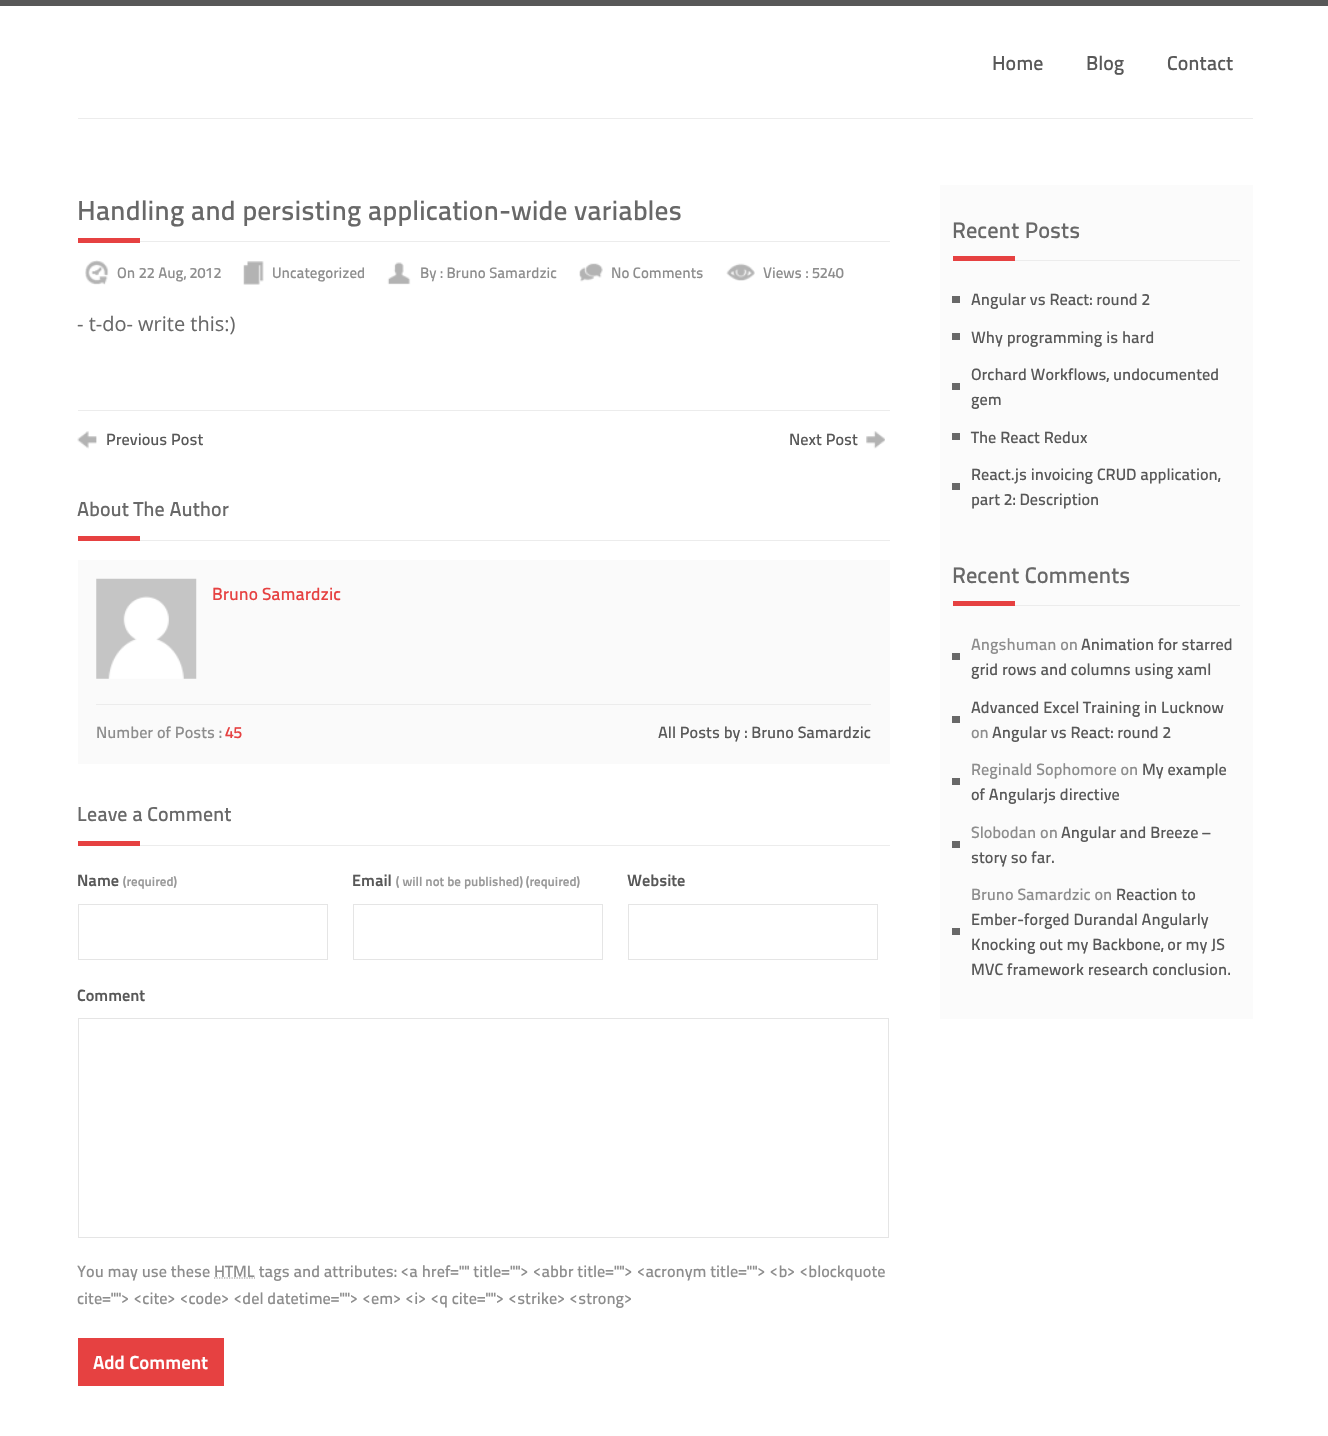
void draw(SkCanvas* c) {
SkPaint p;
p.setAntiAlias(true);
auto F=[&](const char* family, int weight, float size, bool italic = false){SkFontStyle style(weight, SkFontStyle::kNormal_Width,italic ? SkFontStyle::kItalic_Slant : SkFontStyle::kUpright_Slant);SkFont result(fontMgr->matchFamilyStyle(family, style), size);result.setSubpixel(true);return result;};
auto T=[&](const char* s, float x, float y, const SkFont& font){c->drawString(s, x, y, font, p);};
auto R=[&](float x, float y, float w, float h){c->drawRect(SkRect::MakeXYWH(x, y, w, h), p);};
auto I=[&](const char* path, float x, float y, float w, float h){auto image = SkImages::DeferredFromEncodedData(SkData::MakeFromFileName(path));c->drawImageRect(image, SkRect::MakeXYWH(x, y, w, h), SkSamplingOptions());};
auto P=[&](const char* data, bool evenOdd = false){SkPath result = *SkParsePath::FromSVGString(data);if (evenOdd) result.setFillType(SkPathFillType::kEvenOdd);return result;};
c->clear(0xffffffff);
p.setColor(0xff585858);
R(0,0,1328,6);
auto f1 = F("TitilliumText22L",500,20);
T("Home",992,70,f1);
T("Blog",1086,70,f1);
T("Contact",1167,70,f1);
p.setColor(0xffececec);
R(78,118,1175,1);
R(140,241,750,1);
auto f2 = F("TitilliumText22L",500,27.5);
p.setColor(0xff686868);
T("Handling and persisting application-wide variables",77,220,f2);
p.setColor(0xffe64141);
R(78,238,62,5);
I("1.png",85,260,24,25);
auto f3 = F("TitilliumText22L",500,15);
p.setColor(0xff8d8d8d);
T("On 22 Aug, 2012",117,278,f3);
I("2.png",243,261,21,24);
T("Uncategorized",272,278,f3);
I("3.png",387,262,24,23);
T("By : Bruno Samardzic",420,278,f3);
I("4.png",579,263,24,19);
T("No Comments",611,278,f3);
I("5.png",726,263,29,18);
T("Views : 5240",763,278,f3);
auto f4 = F("Open Sans",400,20);
p.setColor(0xff686868);
T("- t-do- write this:)",77,331,f4);
p.setColor(0xffececec);
R(78,410,812,1);
I("6.png",77,431,20,18);
auto f5 = F("TitilliumText22L",500,16.25);
p.setColor(0xff585858);
T("Previous Post",106,445,f5);
T("Next Post",789,445,f5);
I("7.png",866,431,19,18);
p.setColor(0xffececec);
R(140,540,750,1);
p.setColor(0xff686868);
T("About The Author",77,516,f1);
p.setColor(0xffe64141);
R(78,536,62,5);
p.setColor(0xfffafafa);
R(78,560,812,204);
I("8.png",96,578,101,101);
auto f6 = F("TitilliumText22L",500,17.5);
p.setColor(0xffe64141);
T("Bruno Samardzic",212,600,f6);
p.setColor(0xffececec);
R(96,704,775,1);
p.setColor(0xff8d8d8d);
T("Number of Posts :",96,738,f5);
p.setColor(0xffe64141);
T("45",225,738,f5);
p.setColor(0xff585858);
T("All Posts by : Bruno Samardzic",658,738,f5);
p.setColor(0xffececec);
R(140,845,750,1);
p.setColor(0xff686868);
T("Leave a Comment",77,821,f1);
p.setColor(0xffe64141);
R(78,841,62,5);
auto f7 = F("TitilliumText22L",700,16.25);
p.setColor(0xff585858);
T("Name",77,886,f7);
auto f8 = F("TitilliumText22L",700,13);
p.setColor(0xff999999);
T("(required)",123,886,f8);
p.setStroke(true);
p.setStrokeWidth(1);
p.setColor(0xffe5e5e5);
c->drawRect(SkRect::MakeXYWH(78.5,904.5,249,55),p);
p.setStroke(false);
p.setColor(0xff585858);
T("Email",352,886,f7);
p.setColor(0xff999999);
T("( will not be published)",396,886,f8);
T("(required)",526,886,f8);
p.setStroke(true);
p.setColor(0xffe5e5e5);
c->drawRect(SkRect::MakeXYWH(353.5,904.5,249,55),p);
p.setStroke(false);
p.setColor(0xff585858);
T("Website",627,886,f7);
p.setStroke(true);
p.setColor(0xffe5e5e5);
c->drawRect(SkRect::MakeXYWH(628.5,904.5,249,55),p);
p.setStroke(false);
p.setColor(0xff585858);
T("Comment",77,1001,f7);
p.setStroke(true);
p.setColor(0xffe5e5e5);
c->drawRect(SkRect::MakeXYWH(78.5,1018.5,810,219),p);
p.setStroke(false);
p.setColor(0xff8d8d8d);
T("You may use these HTML tags and attributes: <a href=\"\" title=\"\"> <abbr title=\"\"> <acronym title=\"\"> <b> <blockquote",77,1277,f5);
p.setStroke(true);
p.setStrokeWidth(1.2);
p.setPathEffect(SkDashPathEffect::Make({{1.25f,1.25f}}, 0));
c->drawPath(P("M214 1278h41"),p);
p.setPathEffect(nullptr);
p.setStroke(false);
T("cite=\"\"> <cite> <code> <del datetime=\"\"> <em> <i> <q cite=\"\"> <strike> <strong>",77,1304,f5);
p.setColor(0xffe64141);
R(78,1338,146,48);
auto f9 = F("TitilliumText22L",700,18.75);
p.setColor(0xffffffff);
T("Add Comment",93,1369,f9);
p.setColor(0xfffbfbfb);
R(940,185,313,834);
p.setColor(0xffececec);
R(1015,260,225,1);
auto f10 = F("TitilliumText22L",500,22.5);
p.setColor(0xff686868);
T("Recent Posts",952,238,f10);
p.setColor(0xffe64141);
R(953,256,62,5);
p.setColor(0xff686868);
R(952,296,8,7);
p.setColor(0xff585858);
T("Angular vs React: round 2",971,305,f5);
p.setColor(0xff686868);
R(952,333,8,7);
p.setColor(0xff585858);
T("Why programming is hard",971,343,f5);
p.setColor(0xff686868);
R(952,383,8,7);
p.setColor(0xff585858);
T("Orchard Workflows, undocumented",971,380,f5);
T("gem",971,405,f5);
p.setColor(0xff686868);
R(952,433,8,7);
p.setColor(0xff585858);
T("The React Redux",971,443,f5);
p.setColor(0xff686868);
R(952,483,8,7);
p.setColor(0xff585858);
T("React.js invoicing CRUD application,",971,480,f5);
T("part 2: Description",971,505,f5);
p.setColor(0xffececec);
R(1015,605,225,1);
p.setColor(0xff686868);
T("Recent Comments",952,583,f10);
p.setColor(0xffe64141);
R(953,601,62,5);
p.setColor(0xff686868);
R(952,653,8,7);
p.setColor(0xff8d8d8d);
T("Angshuman on",971,650,f5);
p.setColor(0xff585858);
T("Animation for starred",1081,650,f5);
T("grid rows and columns using xaml",971,675,f5);
p.setColor(0xff686868);
R(952,716,8,7);
p.setColor(0xff585858);
T("Advanced Excel Training in Lucknow",971,713,f5);
p.setColor(0xff8d8d8d);
T("on",971,738,f5);
p.setColor(0xff585858);
T("Angular vs React: round 2",992,738,f5);
p.setColor(0xff686868);
R(952,778,8,7);
p.setColor(0xff8d8d8d);
T("Reginald Sophomore on",971,775,f5);
p.setColor(0xff585858);
T("My example",1142,775,f5);
T("of Angularjs directive",971,800,f5);
p.setColor(0xff686868);
R(952,841,8,7);
p.setColor(0xff8d8d8d);
T("Slobodan on",971,838,f5);
p.setColor(0xff585858);
T("Angular and Breeze –",1061,838,f5);
T("story so far.",971,863,f5);
p.setColor(0xff686868);
R(952,928,8,7);
p.setColor(0xff8d8d8d);
T("Bruno Samardzic on",971,900,f5);
p.setColor(0xff585858);
T("Reaction to",1116,900,f5);
T("Ember-forged Durandal Angularly",971,925,f5);
T("Knocking out my Backbone, or my JS",971,950,f5);
T("MVC framework research conclusion.",971,975,f5);
}
